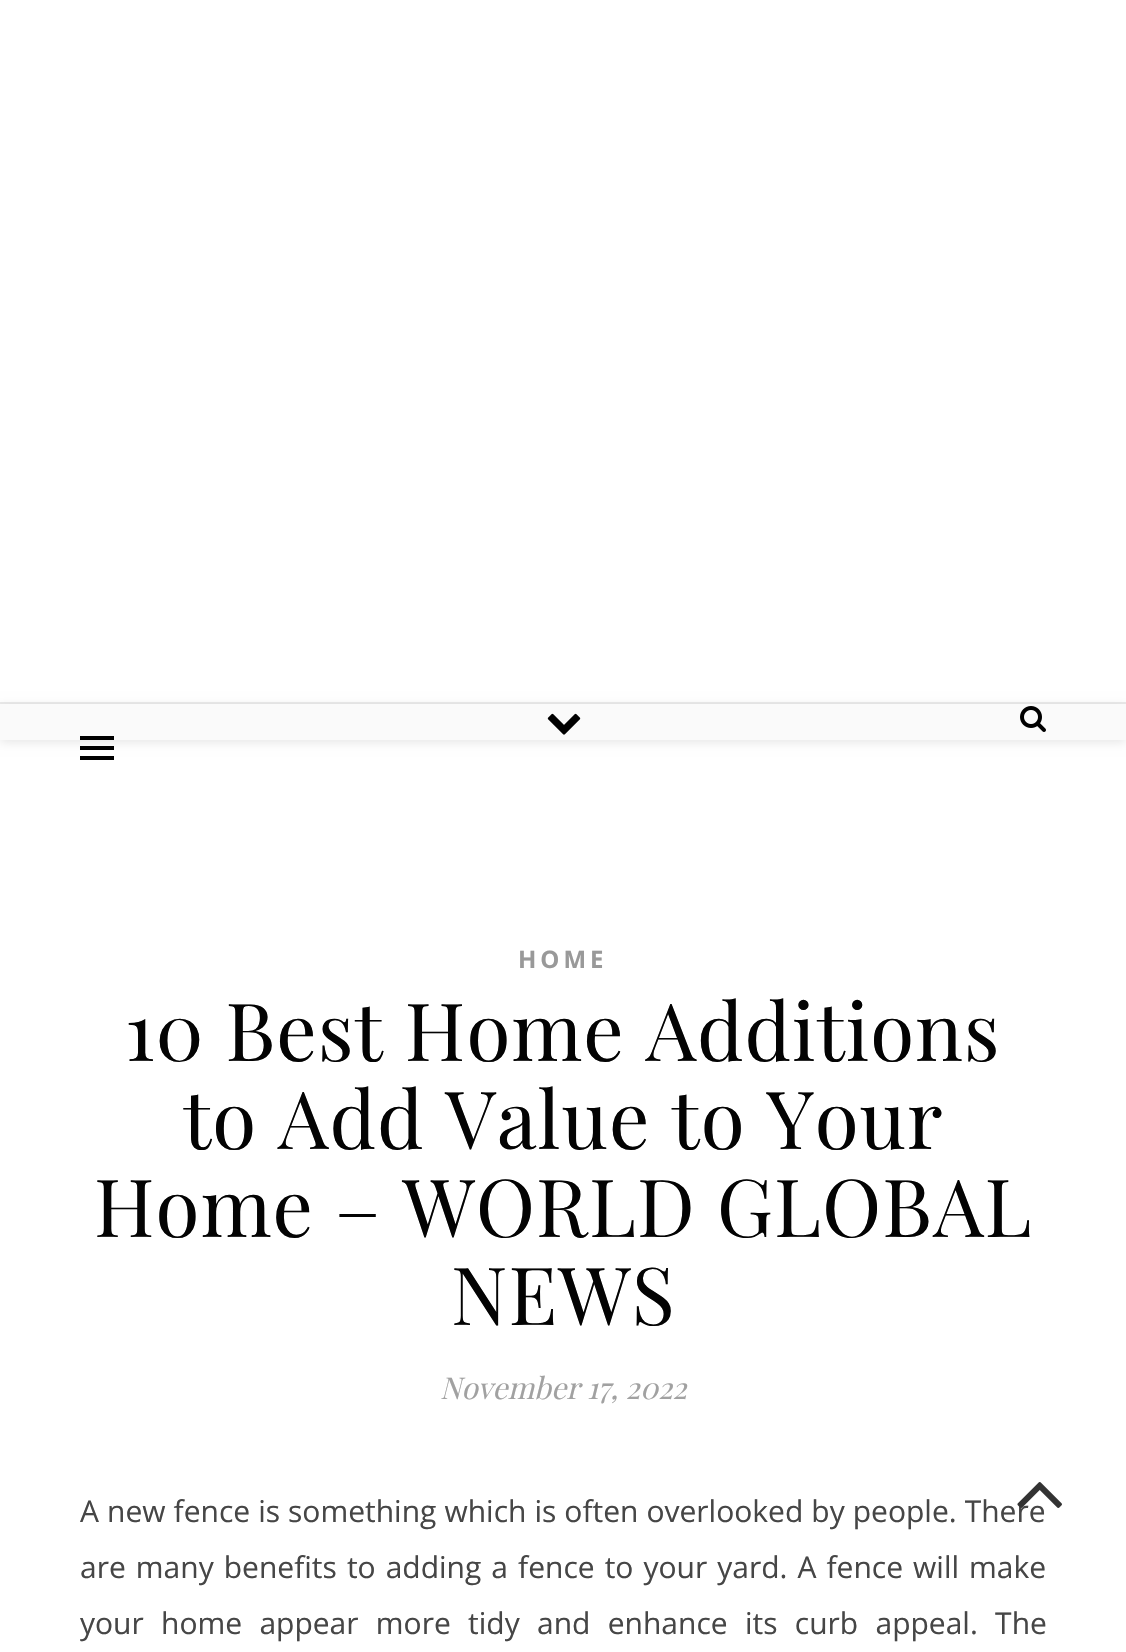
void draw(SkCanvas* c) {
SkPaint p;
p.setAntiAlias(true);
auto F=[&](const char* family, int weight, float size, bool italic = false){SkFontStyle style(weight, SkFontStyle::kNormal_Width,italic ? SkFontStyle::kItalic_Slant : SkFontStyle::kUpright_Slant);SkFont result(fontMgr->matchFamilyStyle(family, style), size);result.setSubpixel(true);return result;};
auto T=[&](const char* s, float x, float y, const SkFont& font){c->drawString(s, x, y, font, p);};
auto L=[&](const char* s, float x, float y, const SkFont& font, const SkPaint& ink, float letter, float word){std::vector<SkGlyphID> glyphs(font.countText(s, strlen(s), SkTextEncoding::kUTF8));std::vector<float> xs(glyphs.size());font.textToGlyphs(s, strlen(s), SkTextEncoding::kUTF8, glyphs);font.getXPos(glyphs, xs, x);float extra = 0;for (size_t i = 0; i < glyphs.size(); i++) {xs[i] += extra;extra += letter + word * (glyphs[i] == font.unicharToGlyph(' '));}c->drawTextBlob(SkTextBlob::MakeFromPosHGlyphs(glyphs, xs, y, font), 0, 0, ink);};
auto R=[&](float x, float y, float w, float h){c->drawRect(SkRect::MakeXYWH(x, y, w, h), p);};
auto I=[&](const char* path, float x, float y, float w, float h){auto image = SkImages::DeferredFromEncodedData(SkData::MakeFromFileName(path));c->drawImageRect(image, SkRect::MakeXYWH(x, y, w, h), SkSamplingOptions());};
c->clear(0xffffffff);
p.setColor(0xffebebeb);
R(0,702,1126,2);
p.setColor(0x1a000000);
p.setMaskFilter(SkMaskFilter::MakeBlur(kNormal_SkBlurStyle, 5));
c->drawRect(SkRect::MakeXYWH(0,706,1126,36),p);
p.setMaskFilter(nullptr);
p.setColor(0xfffafafa);
R(0,704,1126,36);
I("1.png",547,713,34,22);
I("2.png",1020,706,26,26);
p.setColor(0xff000000);
R(80,736,34,4);
R(80,746,34,4);
R(80,756,34,4);
auto f1 = F("Open Sans",700,24);
p.setColor(0xff999999);
L("HOME",518,968,f1,p,4,0);
auto f2 = F("Playfair Display",400,80);
p.setColor(0xff030303);
L("10 Best Home Additions",125,1061,f2,p,1,0);
L("to Add Value to Your",183,1149,f2,p,1,0);
L("Home – WORLD GLOBAL",94,1237,f2,p,1,0);
L("NEWS",451,1325,f2,p,1,0);
auto f3 = F("Playfair Display",400,30,true);
p.setColor(0xffa1a1a1);
T("November 17, 2022",440,1399,f3);
auto f4 = F("Open Sans",400,30);
p.setColor(0xff464646);
L("A new fence is something which is often overlooked by people. There",80,1522,f4,p,0,.25);
L("are many benefits to adding a fence to your yard. A fence will make",80,1578,f4,p,0,2.25);
L("your home appear more tidy and enhance its curb appeal. The",80,1634,f4,p,0,9.5);
I("3.png",1017,1482,45,26);
}
